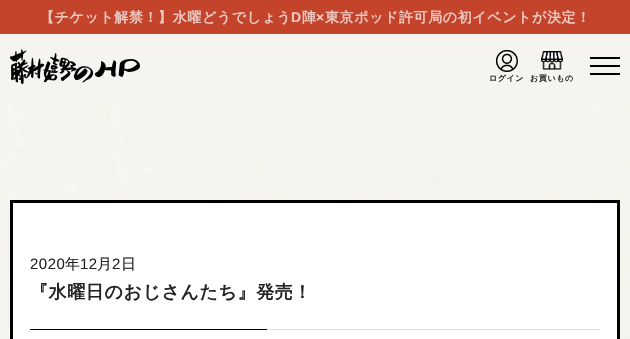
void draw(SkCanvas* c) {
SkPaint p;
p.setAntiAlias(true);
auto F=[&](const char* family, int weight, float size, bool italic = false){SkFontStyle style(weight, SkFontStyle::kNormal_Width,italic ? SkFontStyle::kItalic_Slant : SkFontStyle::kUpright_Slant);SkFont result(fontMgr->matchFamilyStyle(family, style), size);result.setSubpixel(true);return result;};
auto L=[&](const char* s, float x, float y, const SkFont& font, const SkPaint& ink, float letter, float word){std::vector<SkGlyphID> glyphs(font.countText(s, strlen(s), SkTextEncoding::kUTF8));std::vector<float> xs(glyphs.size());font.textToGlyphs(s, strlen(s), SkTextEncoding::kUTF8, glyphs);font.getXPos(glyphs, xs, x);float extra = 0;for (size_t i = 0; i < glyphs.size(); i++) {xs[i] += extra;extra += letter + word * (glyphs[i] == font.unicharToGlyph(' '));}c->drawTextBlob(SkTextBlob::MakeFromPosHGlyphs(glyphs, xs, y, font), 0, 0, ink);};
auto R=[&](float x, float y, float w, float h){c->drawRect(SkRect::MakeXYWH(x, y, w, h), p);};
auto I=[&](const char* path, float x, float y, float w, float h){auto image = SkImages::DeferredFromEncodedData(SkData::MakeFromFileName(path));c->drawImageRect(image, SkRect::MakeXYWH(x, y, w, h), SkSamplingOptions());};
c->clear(0xffffffff);
p.setColor(0xffc4432b);
R(0,0,630,34);
auto f1 = F("WenQuanYi Zen Hei",700,14);
p.setColor(0xffedc7bf);
L("【チケット解禁！】水曜どうでしょう",40,22,f1,p,.6,0);
auto f2 = F("Liberation Sans",700,14);
L("D",291,22,f2,p,.6,0);
L("陣",302,22,f1,p,.6,0);
L("×",316,22,f2,p,.6,0);
L("東京ポッド許可局の初イベントが決定！",325,22,f1,p,.6,0);
p.setColor(0xfff6f4f0);
R(0,34,630,65);
I("1.png",10,49,130,36);
p.setColor(0xff000000);
R(590,57,30,2);
R(590,65,30,2);
R(590,73,30,2);
I("2.png",496,50,22,22);
auto f3 = F("WenQuanYi Zen Hei",700,8);
p.setColor(0xff242424);
L("ログイン",489,81,f3,p,.6,0);
I("3.png",541,51,22,19);
L("お買いもの",530,81,f3,p,.6,0);
I("4.png",0,99,630,240);
p.setColor(0xffffffff);
c->drawRect(SkRect::MakeXYWH(11.5,201.5,607,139),p);
p.setStroke(true);
p.setStrokeWidth(3);
p.setColor(0xff000000);
c->drawRect(SkRect::MakeXYWH(11.5,201.5,607,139),p);
p.setStroke(false);
p.setColor(0xffdedede);
R(267,329,333,1);
auto f4 = F("Liberation Sans",400,15);
p.setColor(0xff242424);
L("2020",30,269,f4,p,.5,0);
auto f5 = F("WenQuanYi Zen Hei",500,15);
L("年",65,269,f5,p,.5,0);
L("12",80,269,f4,p,.5,0);
L("月",97,269,f5,p,.5,0);
L("2",112,269,f4,p,.5,0);
L("日",121,269,f5,p,.5,0);
auto f6 = F("WenQuanYi Zen Hei",700,18);
L("『水曜日のおじさんたち』発売！",30,298,f6,p,.6,0);
p.setColor(0xff000000);
R(30,329,237,1);
}
